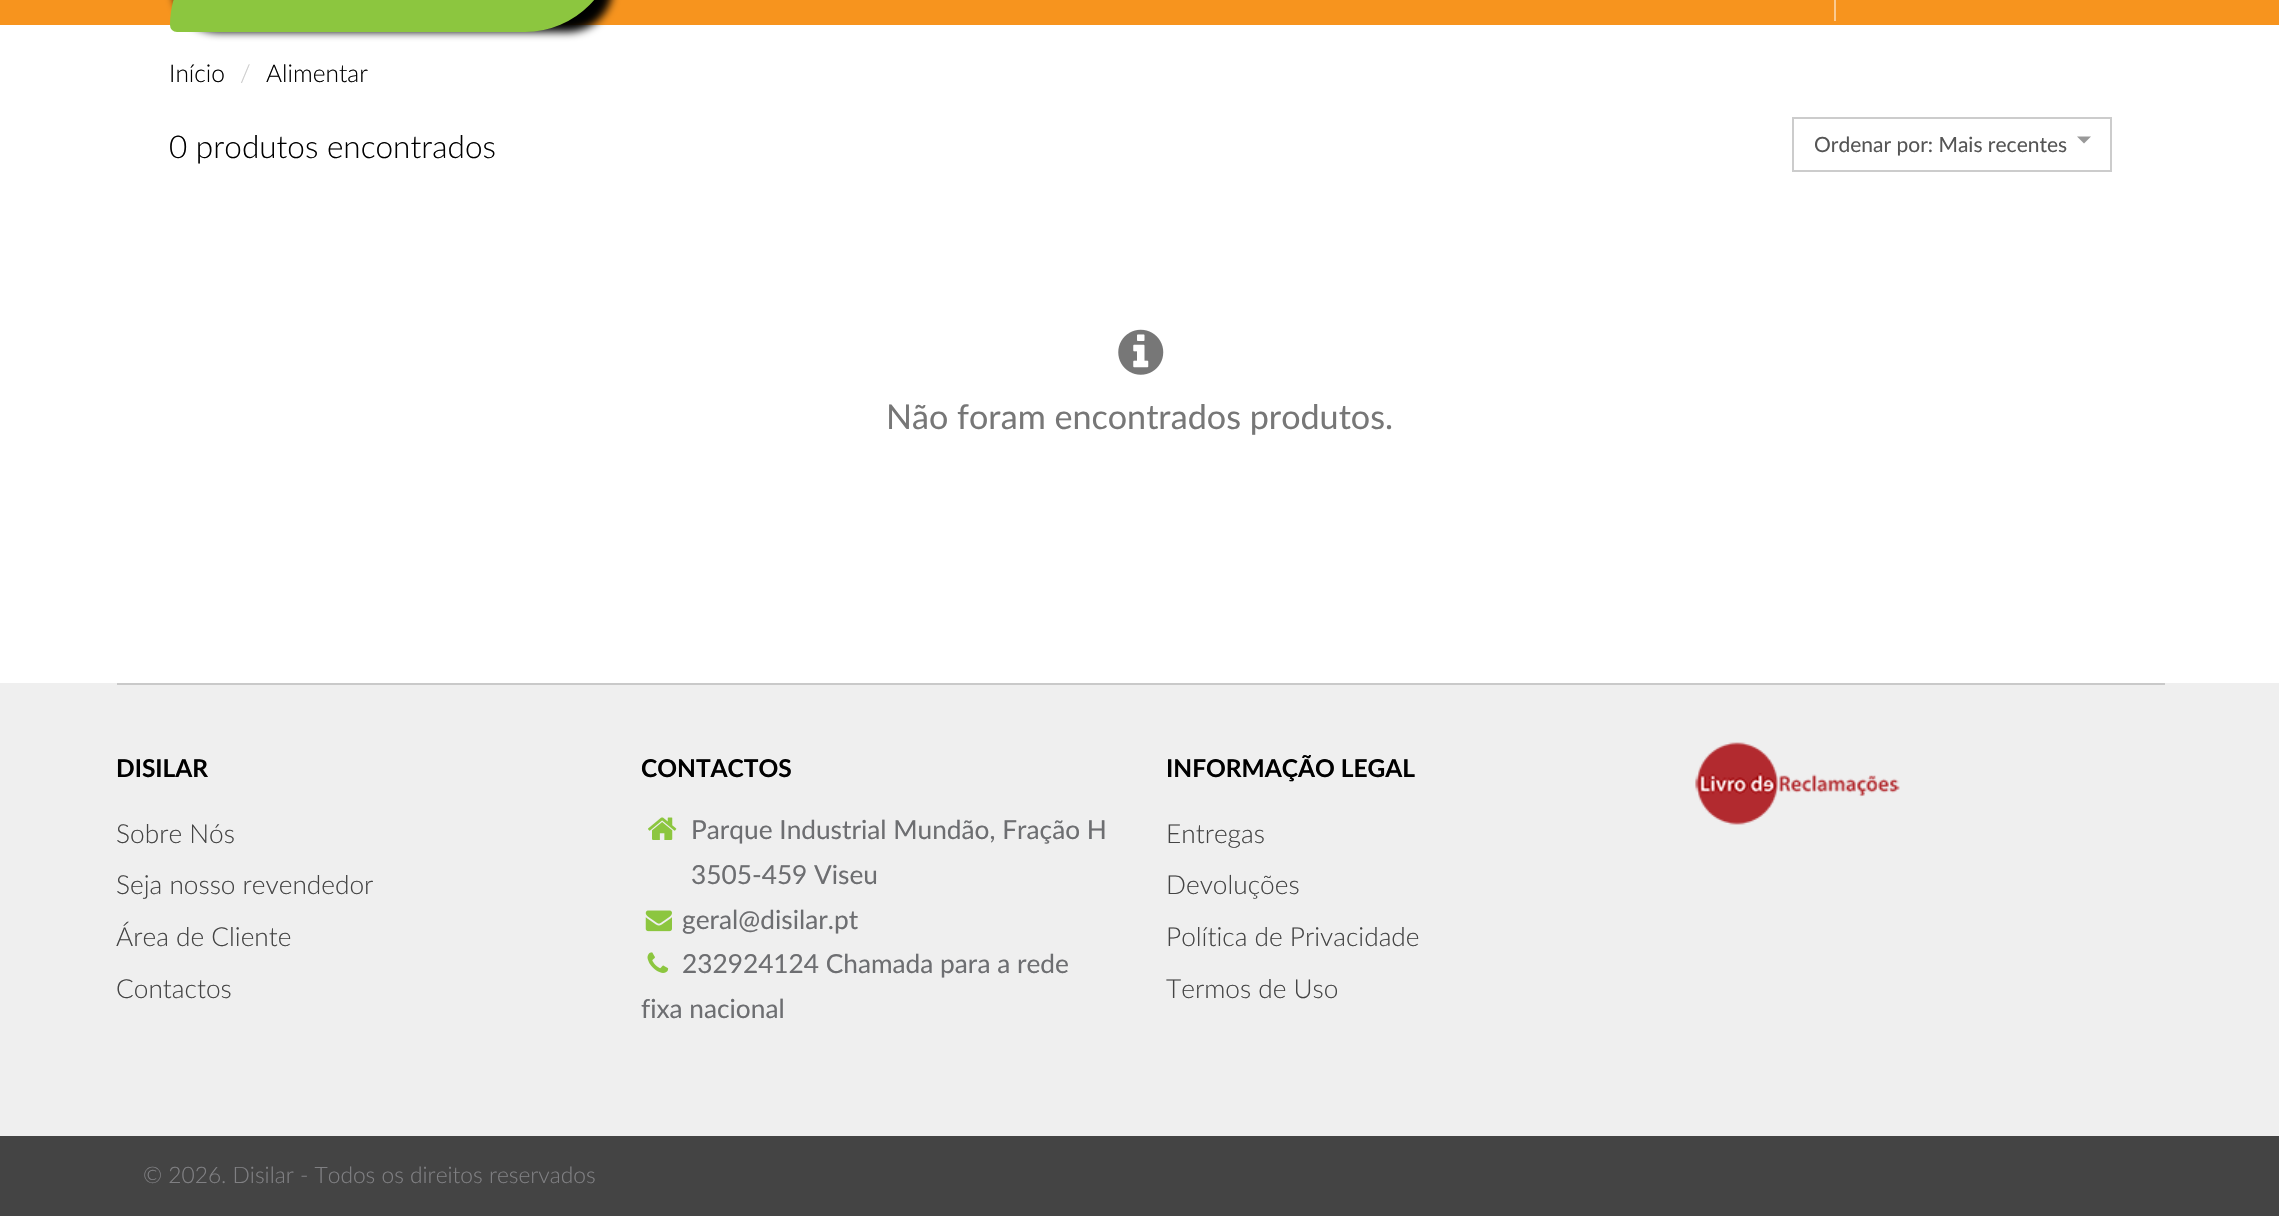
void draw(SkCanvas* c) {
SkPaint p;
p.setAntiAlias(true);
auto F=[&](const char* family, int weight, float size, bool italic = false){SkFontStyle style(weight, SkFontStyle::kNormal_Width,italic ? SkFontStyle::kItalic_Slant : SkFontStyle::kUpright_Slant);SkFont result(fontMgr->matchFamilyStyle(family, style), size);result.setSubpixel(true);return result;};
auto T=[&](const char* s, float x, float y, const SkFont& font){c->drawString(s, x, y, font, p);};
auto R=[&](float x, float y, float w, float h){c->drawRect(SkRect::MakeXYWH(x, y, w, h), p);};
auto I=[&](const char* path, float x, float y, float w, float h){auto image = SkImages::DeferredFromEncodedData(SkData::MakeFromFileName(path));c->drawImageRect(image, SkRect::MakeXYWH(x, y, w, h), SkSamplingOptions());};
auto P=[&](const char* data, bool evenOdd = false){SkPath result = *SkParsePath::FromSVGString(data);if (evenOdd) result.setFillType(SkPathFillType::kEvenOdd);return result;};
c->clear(0xffffffff);
p.setColor(0xfff7941e);
R(0,0,2279,25);
p.setColor(0xff000000);
p.setMaskFilter(SkMaskFilter::MakeBlur(kNormal_SkBlurStyle, 4.5));
c->drawRoundRect(SkRect::MakeXYWH(173,-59,440,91),88,88,p);
p.setMaskFilter(nullptr);
p.setColor(0xff8cc63f);
c->drawPath(P("M261-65h348c3.5 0 6 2.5 6 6c0 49.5-40.5 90-90 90h-348c-3.5 0-6-2.5-6-6c0-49.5 40.5-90 90-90z"),p);
p.setStroke(true);
p.setStrokeWidth(2);
c->drawPath(P("M261-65h348c3.5 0 6 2.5 6 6c0 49.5-40.5 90-90 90h-348c-3.5 0-6-2.5-6-6c0-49.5 40.5-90 90-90z"),p);
p.setStroke(false);
p.setColor(0xfffbca8f);
R(1834,0,2,21);
auto f1 = F("Lato",300,24.5);
p.setColor(0xff000000);
T("Início",169,82,f1);
p.setColor(0xffcccccc);
T("/",240,82,f1);
p.setColor(0xff000000);
T("Alimentar",266,82,f1);
auto f2 = F("Lato",300,31.5);
T("0 produtos encontrados",169,158,f2);
p.setStroke(true);
p.setColor(0xffcccccc);
c->drawRect(SkRect::MakeXYWH(1793,118,318,53),p);
auto f3 = F("Lato",400,21);
p.setStroke(false);
p.setColor(0xff555555);
T("Ordenar por: Mais recentes",1814,152,f3);
p.setColor(0xff999999);
c->drawPath(P("M2077 136.5h14l-7 7z"),p);
I("1.png",1118,329,46,46);
auto f4 = F("Lato",400,34.1);
p.setColor(0xff777777);
T("Não foram encontrados produtos.",886,429,f4);
p.setColor(0xffefefef);
R(0,683,2279,453);
p.setColor(0xffc9c9c9);
R(117,683,2048,2);
auto f5 = F("Lato",700,24.5);
p.setColor(0xff000000);
T("DISILAR",116,777,f5);
auto f6 = F("Lato",300,26.25);
p.setColor(0xff444444);
T("Sobre Nós",116,843,f6);
T("Seja nosso revendedor",116,894,f6);
T("Área de Cliente",116,946,f6);
T("Contactos",116,998,f6);
p.setColor(0xff000000);
T("CONTACTOS",641,777,f5);
I("2.png",648,817,29,23);
auto f7 = F("Lato",400,26.25);
p.setColor(0xff6d6e71);
T("Parque Industrial Mundão, Fração H",691,839,f7);
T("3505-459 Viseu",691,884,f7);
I("3.png",645,910,27,22);
T("geral@disilar.pt",682,929,f7);
I("4.png",647,952,22,21);
T("232924124 Chamada para a rede",682,973,f7);
T("fixa nacional",641,1018,f7);
p.setColor(0xff000000);
T("INFORMAÇÃO LEGAL",1166,777,f5);
p.setColor(0xff444444);
T("Entregas",1166,843,f6);
T("Devoluções",1166,894,f6);
T("Política de Privacidade",1166,946,f6);
T("Termos de Uso",1166,998,f6);
I("5.png",1695,742,205,83);
R(0,1136,2279,80);
auto f8 = F("Lato",300,22.75);
p.setColor(0xff808083);
T("© 2026. Disilar - Todos os direitos reservados",143,1183,f8);
}
